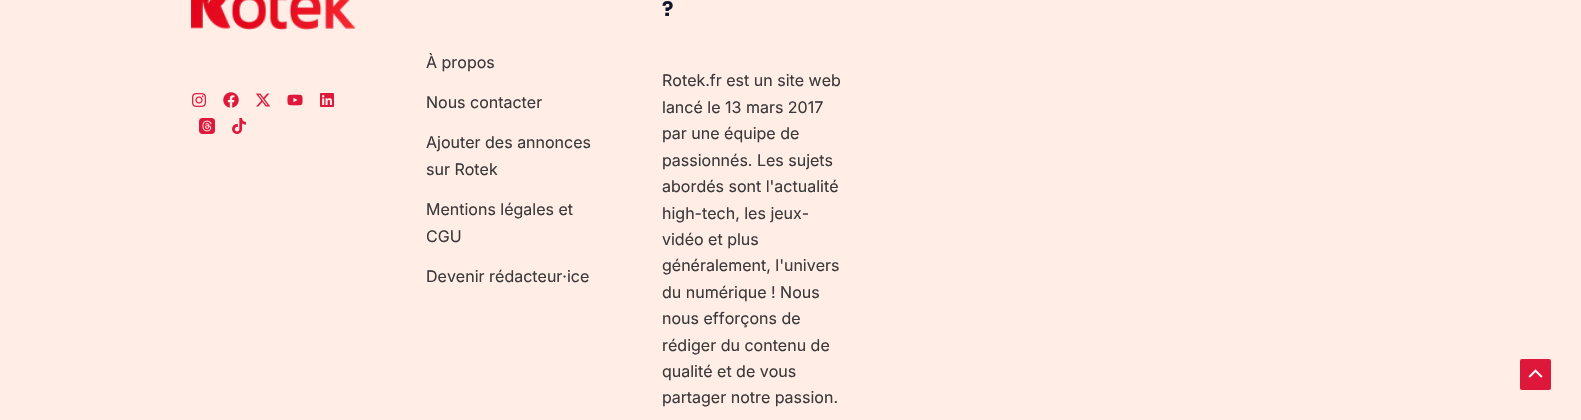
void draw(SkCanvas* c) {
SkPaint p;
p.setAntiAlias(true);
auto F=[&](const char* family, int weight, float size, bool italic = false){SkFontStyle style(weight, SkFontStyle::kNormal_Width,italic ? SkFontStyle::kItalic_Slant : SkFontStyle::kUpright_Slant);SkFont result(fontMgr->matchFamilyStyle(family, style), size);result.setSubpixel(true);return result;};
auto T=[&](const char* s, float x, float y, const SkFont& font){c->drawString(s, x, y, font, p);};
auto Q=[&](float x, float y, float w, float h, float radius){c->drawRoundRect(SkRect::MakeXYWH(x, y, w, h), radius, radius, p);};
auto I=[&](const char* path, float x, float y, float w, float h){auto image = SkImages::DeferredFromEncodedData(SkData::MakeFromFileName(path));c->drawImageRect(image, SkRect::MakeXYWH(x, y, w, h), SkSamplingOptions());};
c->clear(0xffffede6);
I("1.png",191,0,165,30);
I("2.png",192,93,14,14);
I("3.png",223,92,16,16);
I("4.png",256,93,15,14);
I("5.png",287,94,16,12);
I("6.png",320,93,14,14);
I("7.png",199,118,16,16);
I("8.png",232,118,14,16);
auto f1 = F("Inter",400,16);
p.setColor(0xff3a3a3a);
T("À propos",426,68,f1);
T("Nous contacter",426,108,f1);
T("Ajouter des annonces",426,148,f1);
T("sur Rotek",426,175,f1);
T("Mentions légales et",426,215,f1);
T("CGU",426,242,f1);
T("Devenir rédacteur·ice",426,282,f1);
auto f2 = F("Sora",700,20);
p.setColor(0xff0f172a);
T("?",662,16,f2);
p.setColor(0xff3a3a3a);
T("Rotek.fr est un site web",662,86,f1);
T("lancé le 13 mars 2017",662,113,f1);
T("par une équipe de",662,139,f1);
T("passionnés. Les sujets",662,166,f1);
T("abordés sont l'actualité",662,192,f1);
T("high-tech, les jeux-",662,219,f1);
T("vidéo et plus",662,245,f1);
T("généralement, l'univers",662,271,f1);
T("du numérique ! Nous",662,298,f1);
T("nous efforçons de",662,324,f1);
T("rédiger du contenu de",662,351,f1);
T("qualité et de vous",662,377,f1);
T("partager notre passion.",662,403,f1);
p.setColor(0xffdd183b);
Q(1520,359,31,31,2);
I("9.png",1528,369,15,9);
}
